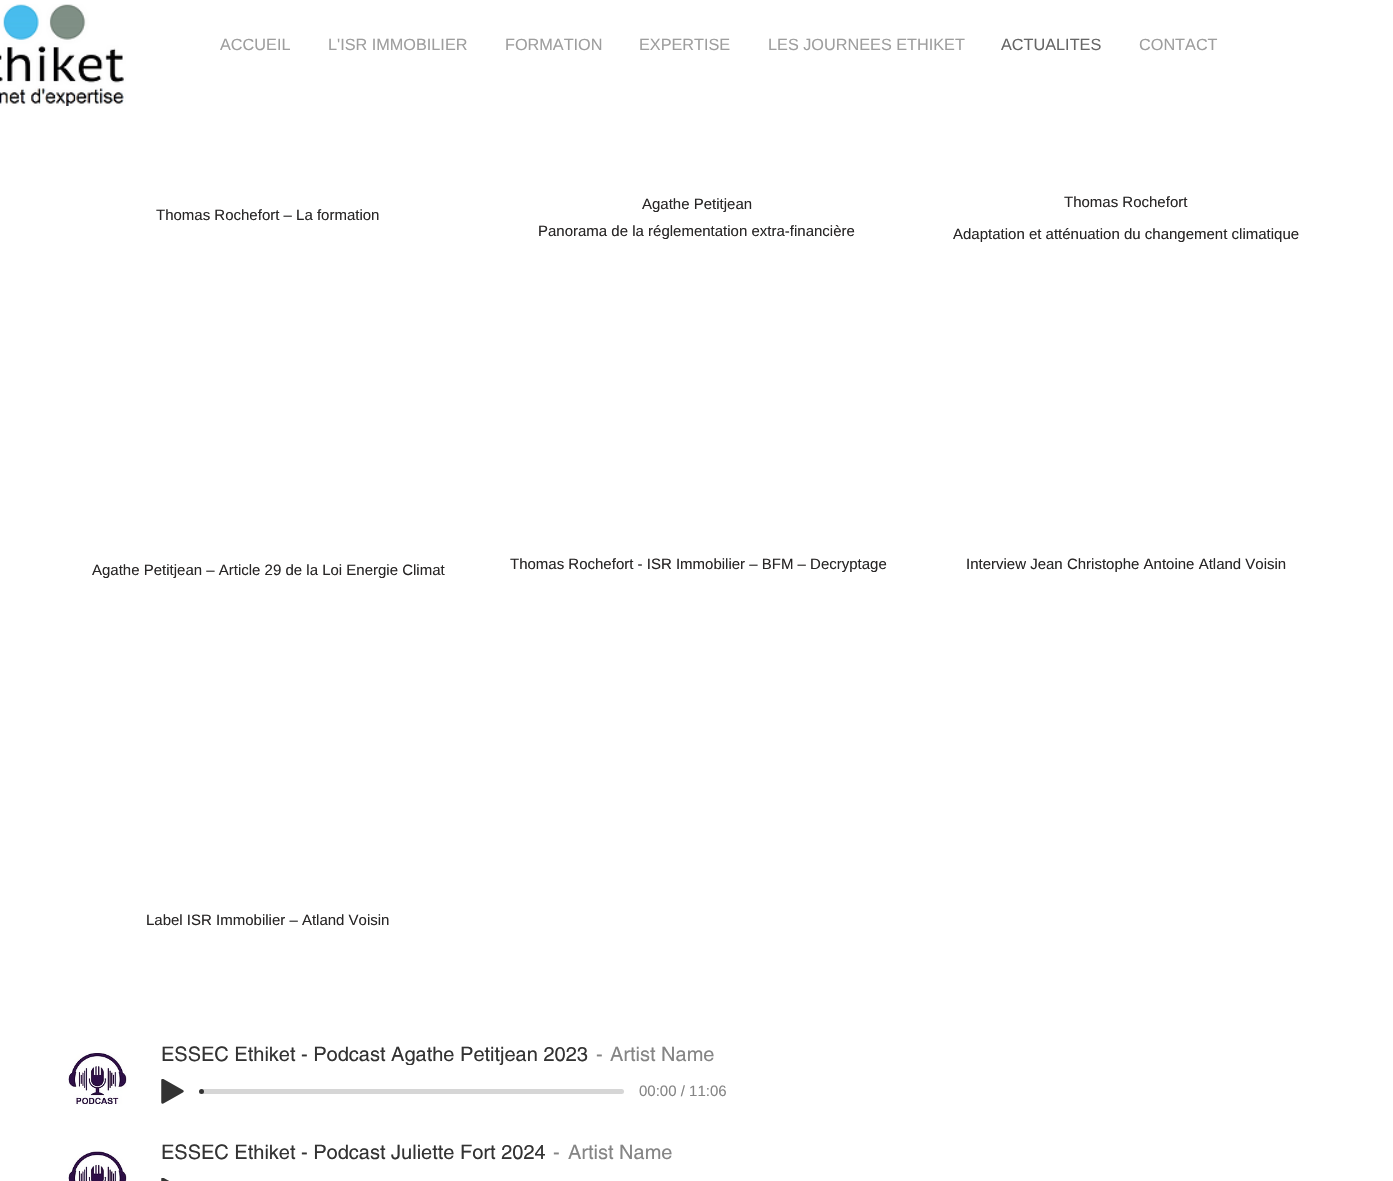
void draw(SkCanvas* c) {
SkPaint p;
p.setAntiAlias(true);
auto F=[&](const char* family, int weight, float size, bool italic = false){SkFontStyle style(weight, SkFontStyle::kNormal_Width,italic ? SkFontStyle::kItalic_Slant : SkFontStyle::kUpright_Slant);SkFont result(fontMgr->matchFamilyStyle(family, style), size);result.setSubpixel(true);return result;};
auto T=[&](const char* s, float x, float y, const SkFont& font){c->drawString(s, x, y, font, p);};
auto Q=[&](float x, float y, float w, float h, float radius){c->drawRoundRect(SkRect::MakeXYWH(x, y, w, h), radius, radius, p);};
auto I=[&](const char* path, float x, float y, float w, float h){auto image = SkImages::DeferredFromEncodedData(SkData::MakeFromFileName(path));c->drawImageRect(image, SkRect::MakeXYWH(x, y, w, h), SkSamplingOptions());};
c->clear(0xffffffff);
I("1.png",0,4,126,102);
auto f1 = F("Liberation Sans",400,16.25);
p.setColor(0xff9e9e9e);
T("ACCUEIL",220,50,f1);
T("L'ISR IMMOBILIER",328,50,f1);
T("FORMATION",505,50,f1);
T("EXPERTISE",639,50,f1);
T("LES JOURNEES ETHIKET",768,50,f1);
p.setColor(0xff666666);
T("ACTUALITES",1001,50,f1);
p.setColor(0xff9e9e9e);
T("CONTACT",1139,50,f1);
auto f2 = F("Liberation Sans",400,15);
p.setColor(0xff282626);
T("Agathe Petitjean",642,209,f2);
T("Thomas Rochefort",1064,207,f2);
T("Thomas Rochefort – La formation",156,220,f2);
T("Panorama de la réglementation extra-financière",538,236,f2);
T("Adaptation et atténuation du changement climatique",953,239,f2);
T("Agathe Petitjean – Article 29 de la Loi Energie Climat",92,575,f2);
T("Thomas Rochefort - ISR Immobilier – BFM – Decryptage",510,569,f2);
T("Interview Jean Christophe Antoine Atland Voisin",966,569,f2);
T("Label ISR Immobilier – Atland Voisin",146,925,f2);
I("2.png",68,1052,59,53);
c->save();
c->clipRect(SkRect::MakeXYWH(161,1045,427,20));
auto f3 = F("helvetica",400,20);
p.setColor(0xff333333);
T("ESSEC Ethiket - Podcast Agathe Petitjean 2023",161,1061,f3);
c->restore();
p.setColor(0xff858585);
T("-",596,1061,f3);
T("Artist Name",610,1061,f3);
I("3.png",161,1079,23,25);
p.setColor(0xffd6d6d6);
Q(201,1089,423,5,2.5);
p.setColor(0xff333333);
c->drawCircle(201.5,1091.5,2.5,p);
p.setColor(0xff858585);
T("00:00 / 11:06",639,1096,f2);
I("4.png",68,1150,59,31);
p.setColor(0xff333333);
T("ESSEC Ethiket - Podcast Juliette Fort 2024",161,1159,f3);
p.setColor(0xff858585);
T("-",553,1159,f3);
T("Artist Name",568,1159,f3);
I("5.png",161,1178,8,3);
}
